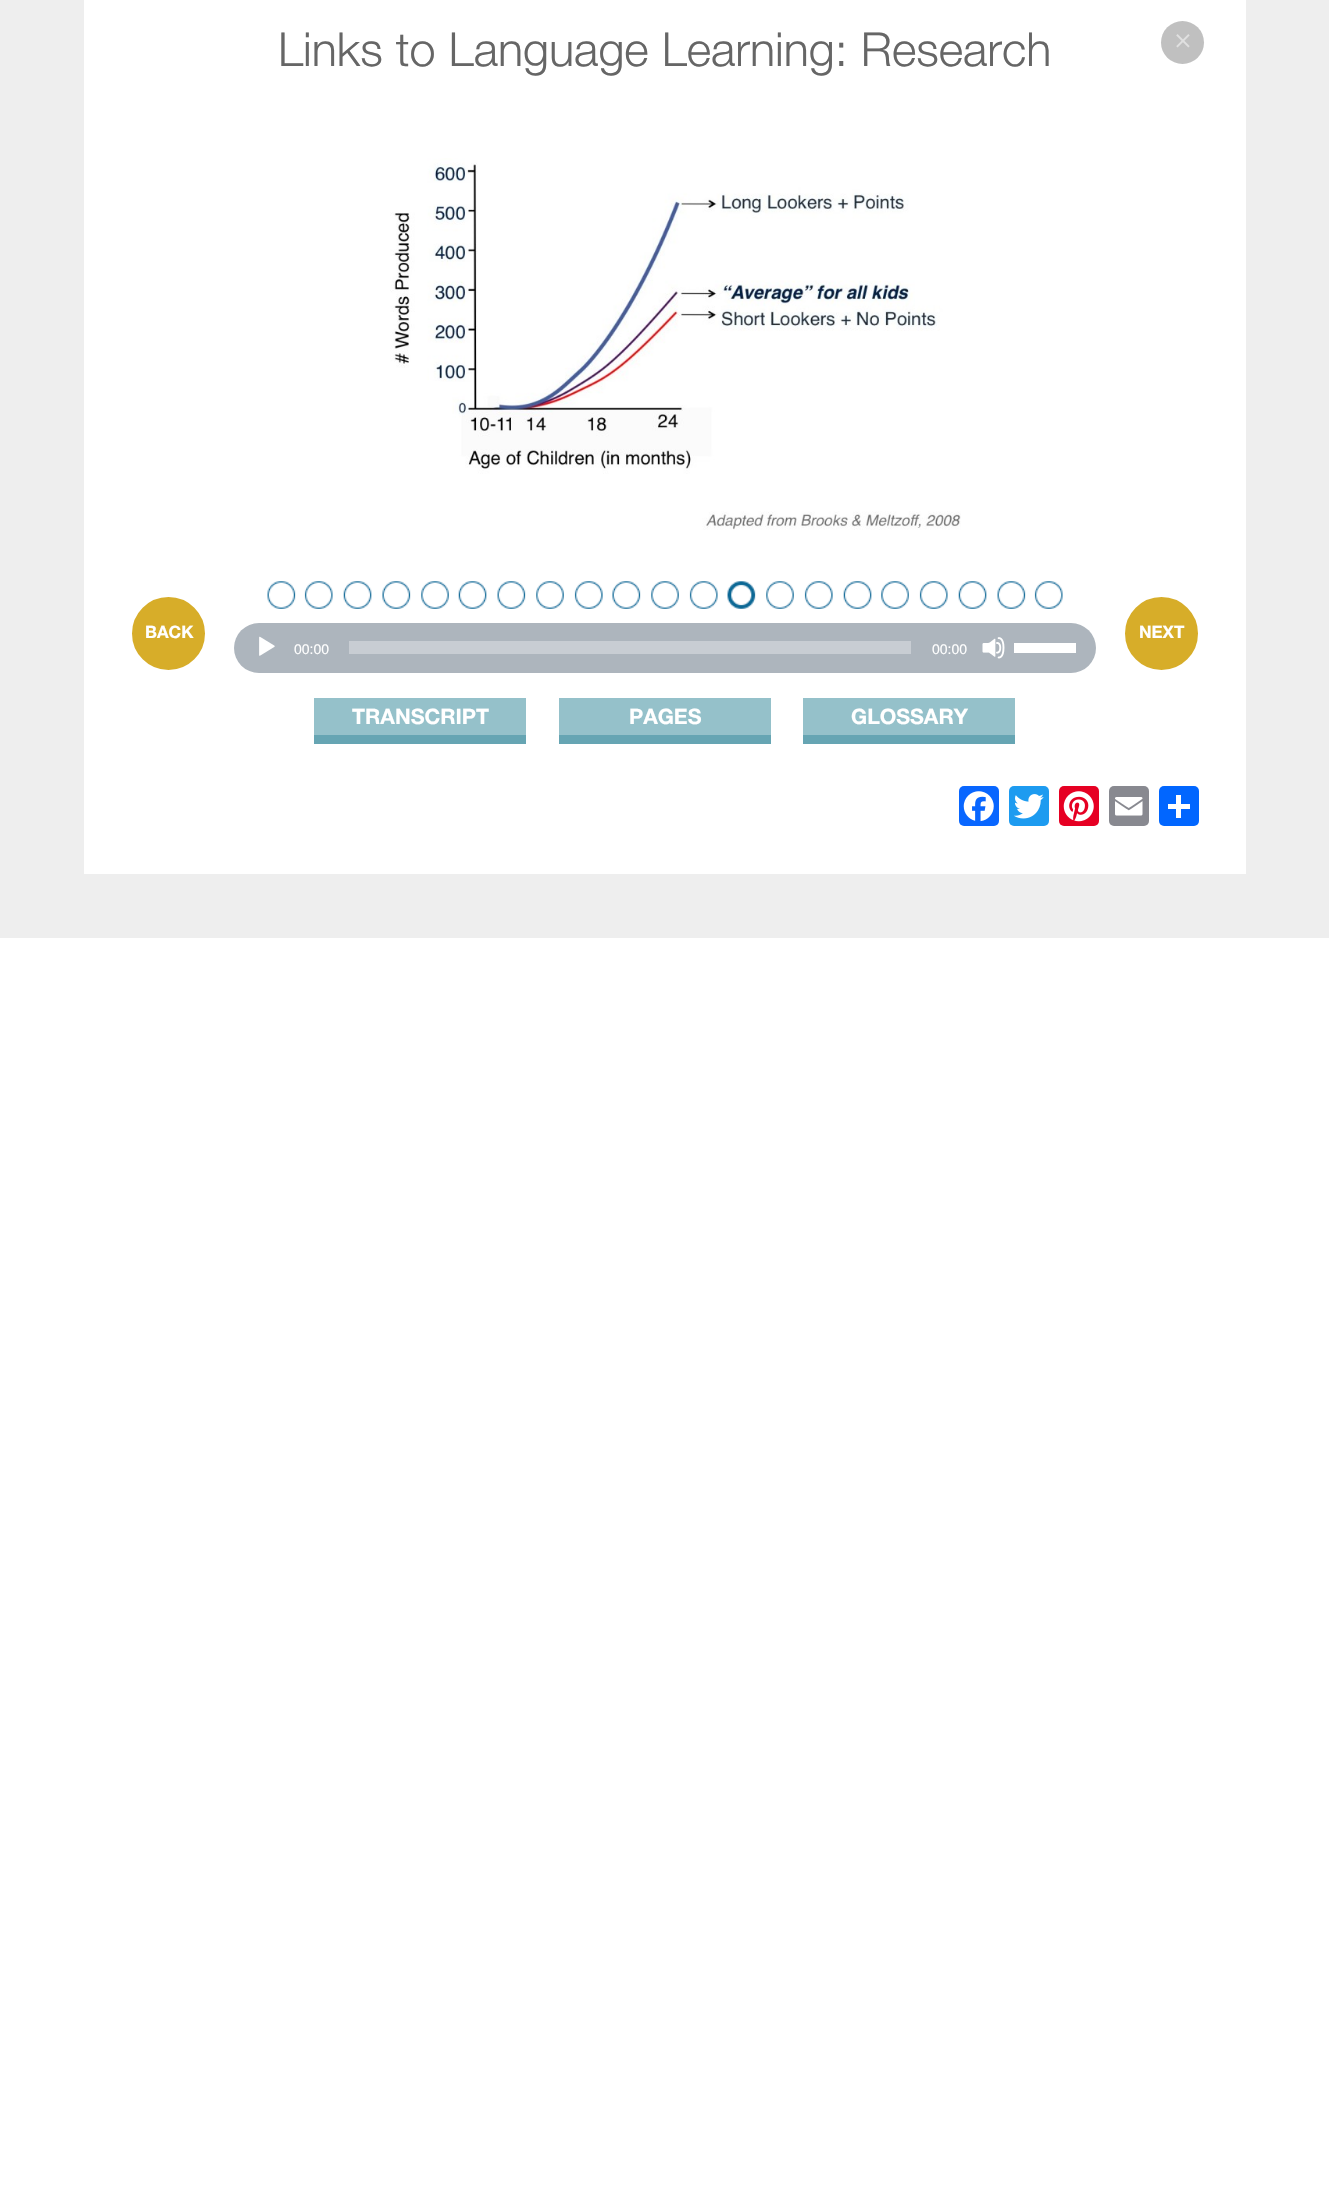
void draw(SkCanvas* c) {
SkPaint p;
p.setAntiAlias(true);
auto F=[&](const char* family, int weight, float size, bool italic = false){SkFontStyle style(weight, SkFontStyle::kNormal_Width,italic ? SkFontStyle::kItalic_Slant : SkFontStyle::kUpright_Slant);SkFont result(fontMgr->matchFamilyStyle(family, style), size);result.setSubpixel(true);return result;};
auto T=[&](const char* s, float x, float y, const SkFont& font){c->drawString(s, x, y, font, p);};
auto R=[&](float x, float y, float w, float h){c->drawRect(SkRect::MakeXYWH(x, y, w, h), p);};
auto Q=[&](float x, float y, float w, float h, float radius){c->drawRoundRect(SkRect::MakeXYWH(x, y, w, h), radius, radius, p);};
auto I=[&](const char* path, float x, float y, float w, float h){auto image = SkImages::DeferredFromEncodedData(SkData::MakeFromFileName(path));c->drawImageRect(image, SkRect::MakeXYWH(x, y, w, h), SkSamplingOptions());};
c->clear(0xffffffff);
p.setColor(0xffeeeeee);
R(0,0,1329,938);
p.setColor(0xffffffff);
R(84,0,1162,874);
auto f1 = F("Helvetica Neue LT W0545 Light",300,46.75);
p.setColor(0xff666666);
T("Links to Language Learning: Research",278,66,f1);
p.setColor(0xffc0c0c0);
c->drawCircle(1182.5,42.5,21.5,p);
I("1.png",1176,34,14,14);
I("2.png",390,158,571,372);
p.setColor(0xffd7ad29);
c->drawCircle(168.5,633.5,39.5,p);
p.setStroke(true);
p.setStrokeWidth(6);
p.setColor(0xffffffff);
c->drawCircle(168.5,633.5,39.5,p);
auto f2 = F("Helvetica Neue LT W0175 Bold",700,17);
p.setStroke(false);
T("BACK",145,638,f2);
p.setColor(0xffd7ad29);
c->drawCircle(1161.5,633.5,39.5,p);
p.setStroke(true);
p.setColor(0xffffffff);
c->drawCircle(1161.5,633.5,39.5,p);
p.setStroke(false);
T("NEXT",1139,638,f2);
I("3.png",267,581,29,28);
I("4.png",304,581,29,28);
I("5.png",343,581,29,28);
I("6.png",382,581,29,28);
I("7.png",421,581,28,28);
I("5.png",458,581,29,28);
I("8.png",497,581,29,28);
I("7.png",536,581,28,28);
I("9.png",574,581,29,28);
I("6.png",612,581,29,28);
I("7.png",651,581,28,28);
I("4.png",689,581,29,28);
I("10.png",727,581,29,28);
I("7.png",766,581,28,28);
I("9.png",804,581,29,28);
I("5.png",843,581,29,28);
I("11.png",881,581,28,28);
I("4.png",919,581,29,28);
I("5.png",958,581,29,28);
I("12.png",997,581,29,28);
I("4.png",1034,581,29,28);
p.setColor(0xffadb5bd);
Q(234,623,862,50,25);
I("13.png",259,636,16,20);
auto f3 = F("Liberation Sans",400,14);
p.setColor(0xffffffff);
T("00:00",294,654,f3);
p.setColor(0xffc8cdd3);
R(349,641,562,13);
p.setColor(0xffffffff);
T("00:00",932,654,f3);
I("14.png",982,637,23,22);
R(1014,643,62,10);
p.setColor(0xff95c1ca);
R(314,698,212,37);
p.setColor(0xff66a5b3);
R(314,735,212,9);
auto f4 = F("Helvetica Neue LT W0175 Bold",700,21.25);
p.setColor(0xffffffff);
T("TRANSCRIPT",352,724,f4);
p.setColor(0xff95c1ca);
R(559,698,212,37);
p.setColor(0xff66a5b3);
R(559,735,212,9);
p.setColor(0xffffffff);
T("PAGES",629,724,f4);
p.setColor(0xff95c1ca);
R(803,698,212,37);
p.setColor(0xff66a5b3);
R(803,735,212,9);
p.setColor(0xffffffff);
T("GLOSSARY",851,724,f4);
p.setColor(0xff0866ff);
Q(959,786,40,40,5);
I("15.png",963,791,31,31);
p.setColor(0xff1d9bf0);
Q(1009,786,40,40,5);
I("16.png",1014,794,30,25);
p.setColor(0xffe60023);
Q(1059,786,40,40,5);
I("17.png",1063,791,31,31);
p.setColor(0xff888990);
Q(1109,786,40,40,5);
I("18.png",1115,797,28,19);
p.setColor(0xff0166ff);
Q(1159,786,40,40,5);
p.setColor(0xffffffff);
R(1176,795,5,23);
R(1168,804,22,5);
}
